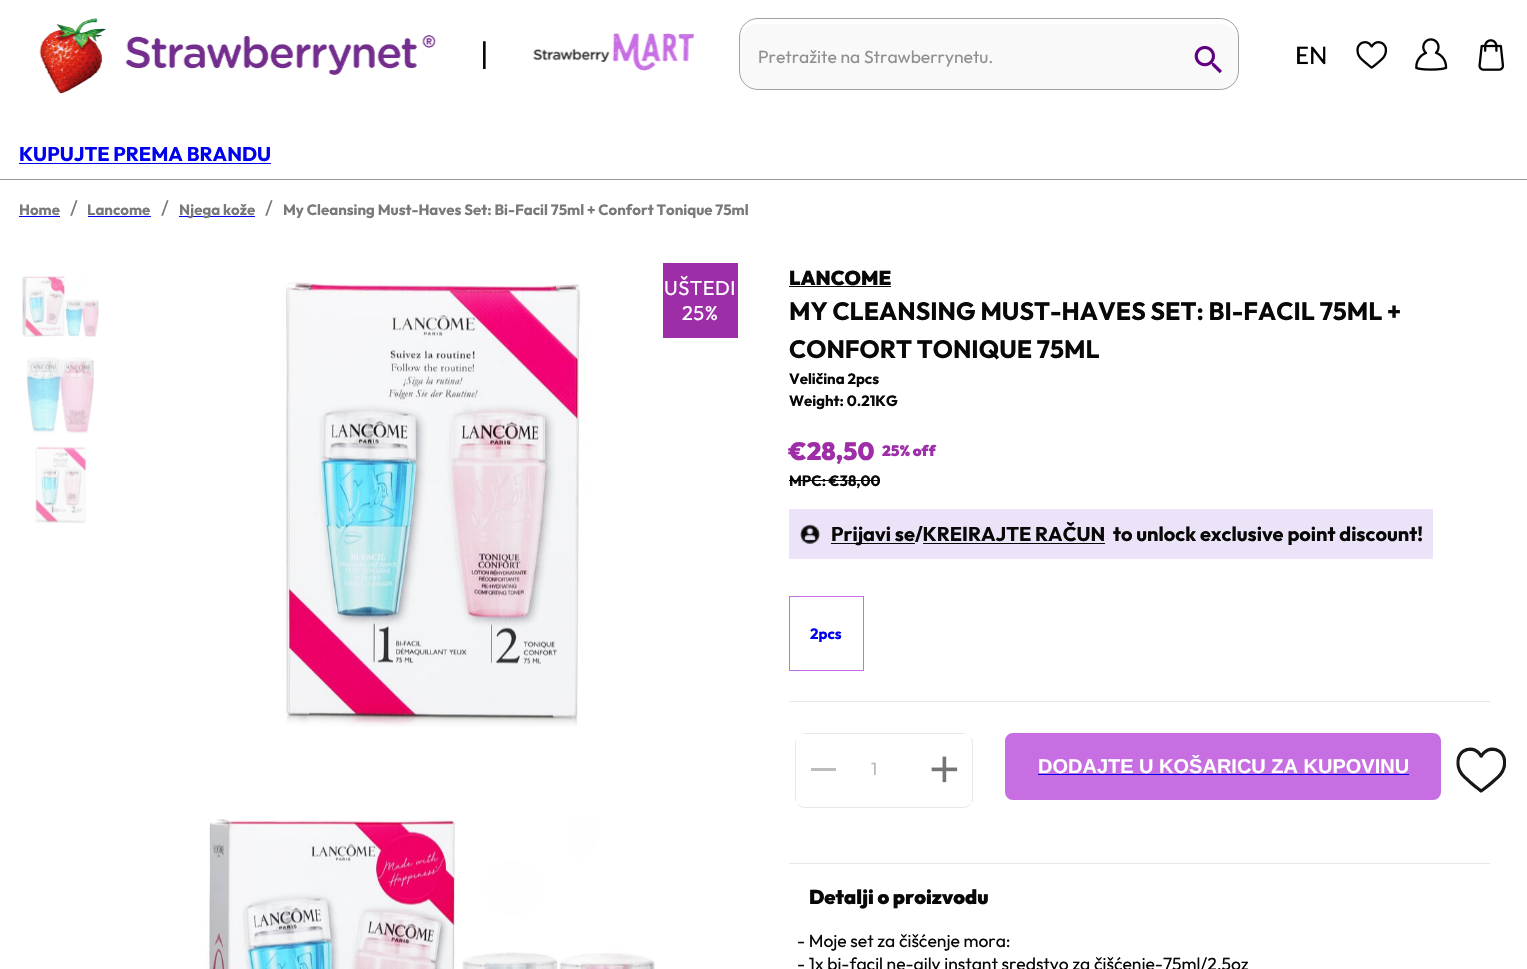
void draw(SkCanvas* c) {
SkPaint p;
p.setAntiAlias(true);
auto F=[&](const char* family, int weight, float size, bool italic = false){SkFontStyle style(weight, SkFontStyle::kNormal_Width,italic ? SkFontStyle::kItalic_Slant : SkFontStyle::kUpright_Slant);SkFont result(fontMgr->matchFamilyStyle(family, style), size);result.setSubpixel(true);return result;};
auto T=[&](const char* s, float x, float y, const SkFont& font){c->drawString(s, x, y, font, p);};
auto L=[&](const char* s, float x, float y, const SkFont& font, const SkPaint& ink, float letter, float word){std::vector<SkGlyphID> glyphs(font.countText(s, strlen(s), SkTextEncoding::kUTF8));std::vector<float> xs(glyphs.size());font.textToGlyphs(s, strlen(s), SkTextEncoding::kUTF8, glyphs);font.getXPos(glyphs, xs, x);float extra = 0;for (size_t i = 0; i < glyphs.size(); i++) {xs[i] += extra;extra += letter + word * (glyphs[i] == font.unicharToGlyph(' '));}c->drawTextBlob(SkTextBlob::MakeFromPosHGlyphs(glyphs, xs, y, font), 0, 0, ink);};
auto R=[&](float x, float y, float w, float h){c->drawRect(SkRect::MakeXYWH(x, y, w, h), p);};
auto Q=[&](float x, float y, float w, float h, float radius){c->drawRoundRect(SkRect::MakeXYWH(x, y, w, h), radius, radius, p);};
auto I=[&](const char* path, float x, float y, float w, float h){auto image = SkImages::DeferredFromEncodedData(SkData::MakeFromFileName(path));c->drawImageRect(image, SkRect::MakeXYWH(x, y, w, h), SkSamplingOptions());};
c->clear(0xffffffff);
p.setColor(0xff979797);
R(0,179,1527,1);
I("1.png",39,18,397,76);
auto f1 = F("Outfit",400,31);
p.setColor(0xff080808);
T("|",480,65,f1);
I("2.png",533,33,161,38);
p.setColor(0xfff9f9f9);
Q(739,24,500,66,19);
I("3.png",1194,45,28,29);
p.setStroke(true);
p.setStrokeWidth(1);
p.setColor(0xffa1a1a1);
c->drawRoundRect(SkRect::MakeXYWH(739.5,18.5,499,71),18.5,18.5,p);
auto f2 = F("Outfit",400,17.5);
p.setStroke(false);
p.setColor(0xff909090);
T("Pretražite na Strawberrynetu.",758,63,f2);
I("4.png",1297,46,29,19);
I("5.png",1356,41,32,28);
I("6.png",1415,38,33,33);
I("7.png",1478,39,27,32);
auto f3 = F("Outfit",700,20);
p.setColor(0xff0000ee);
T("KUPUJTE PREMA BRANDU",19,161,f3);
R(19,163,252,1);
auto f4 = F("Outfit",700,15);
p.setColor(0xff797979);
T("Home",19,215,f4);
p.setColor(0xff0000ee);
R(19,216,41,1);
auto f5 = F("Outfit",400,20);
p.setColor(0xff797979);
T("/",70,215,f5);
T("Lancome",87,215,f4);
p.setColor(0xff0000ee);
R(88,216,63,1);
p.setColor(0xff797979);
T("/",161,215,f5);
p.setColor(0xff0000ee);
R(179,216,76,1);
p.setColor(0xff797979);
T("Njega kože",179,215,f4);
T("/",265,215,f5);
T("My Cleansing Must-Haves Set: Bi-Facil 75ml + Confort Tonique 75ml",283,215,f4);
I("8.png",22,276,77,61);
I("9.png",26,357,68,77);
I("10.png",35,446,51,78);
I("11.png",282,281,304,446);
I("12.png",206,819,449,150);
p.setColor(0xff9e2ea8);
R(663,263,75,75);
p.setColor(0xffffffff);
L("UŠTEDI",664,295,f5,p,.5,0);
L("25%",682,320,f5,p,.5,0);
auto f6 = F("Outfit",900,20);
p.setColor(0xff080808);
T("LANCOME",789,285,f6);
R(789,286,102,1);
auto f7 = F("Outfit",700,25);
T("MY CLEANSING MUST-HAVES SET: BI-FACIL 75ML +",789,320,f7);
T("CONFORT TONIQUE 75ML",789,358,f7);
T("Veličina 2pcs",789,384,f4);
T("Weight: 0.21KG",789,406,f4);
auto f8 = F("Outfit",900,25);
p.setColor(0xff9e2ea8);
T("€28,50",789,460,f8);
auto f9 = F("Outfit",900,15);
T("25% off",882,456,f9);
p.setColor(0xff080808);
T("MPC: €38,00",789,486,f4);
R(789,480,91,1);
p.setColor(0xffede3f8);
R(789,509,644,50);
I("13.png",800,524,21,20);
p.setColor(0xff080808);
R(831,543,84,1);
T("Prijavi se/KREIRAJTE RAČUN",831,541,f3);
T("to unlock exclusive point discount!",1113,541,f3);
R(923,543,182,1);
p.setStroke(true);
p.setColor(0xffc66ee2);
c->drawRect(SkRect::MakeXYWH(789.5,596.5,74,74),p);
p.setStroke(false);
p.setColor(0xff0000ee);
T("2pcs",810,639,f4);
p.setColor(0xffe8e8e8);
R(789,701,701,1);
p.setStroke(true);
c->drawRoundRect(SkRect::MakeXYWH(795.5,733.5,177,74),9.5,9.5,p);
p.setStroke(false);
p.setColor(0xffffffff);
R(796,734,175,70);
p.setColor(0xffbdbdbd);
R(811,768,25,3);
p.setColor(0xffb8b8b8);
T("1",871,775,f2);
I("14.png",931,756,27,27);
p.setColor(0xffc66ee2);
c->drawRoundRect(SkRect::MakeXYWH(1006.5,734.5,433,64),6.5,6.5,p);
p.setStroke(true);
p.setStrokeWidth(3);
c->drawRoundRect(SkRect::MakeXYWH(1006.5,734.5,433,64),6.5,6.5,p);
auto f10 = F("Liberation Sans",700,20);
p.setStroke(false);
p.setColor(0xffffffff);
T("DODAJTE U KOŠARICU ZA KUPOVINU",1038,773,f10);
p.setColor(0xff0000ee);
R(1038,774,371,1);
I("15.png",1456,747,50,46);
p.setColor(0xffe8e8e8);
R(789,863,701,1);
p.setColor(0xff080808);
T("Detalji o proizvodu",809,904,f6);
T("- Moje set za čišćenje mora:",797,947,f2);
T("- 1x bi-facil ne-aily instant sredstvo za čišćenje-75ml/2,5oz",797,970,f2);
}
